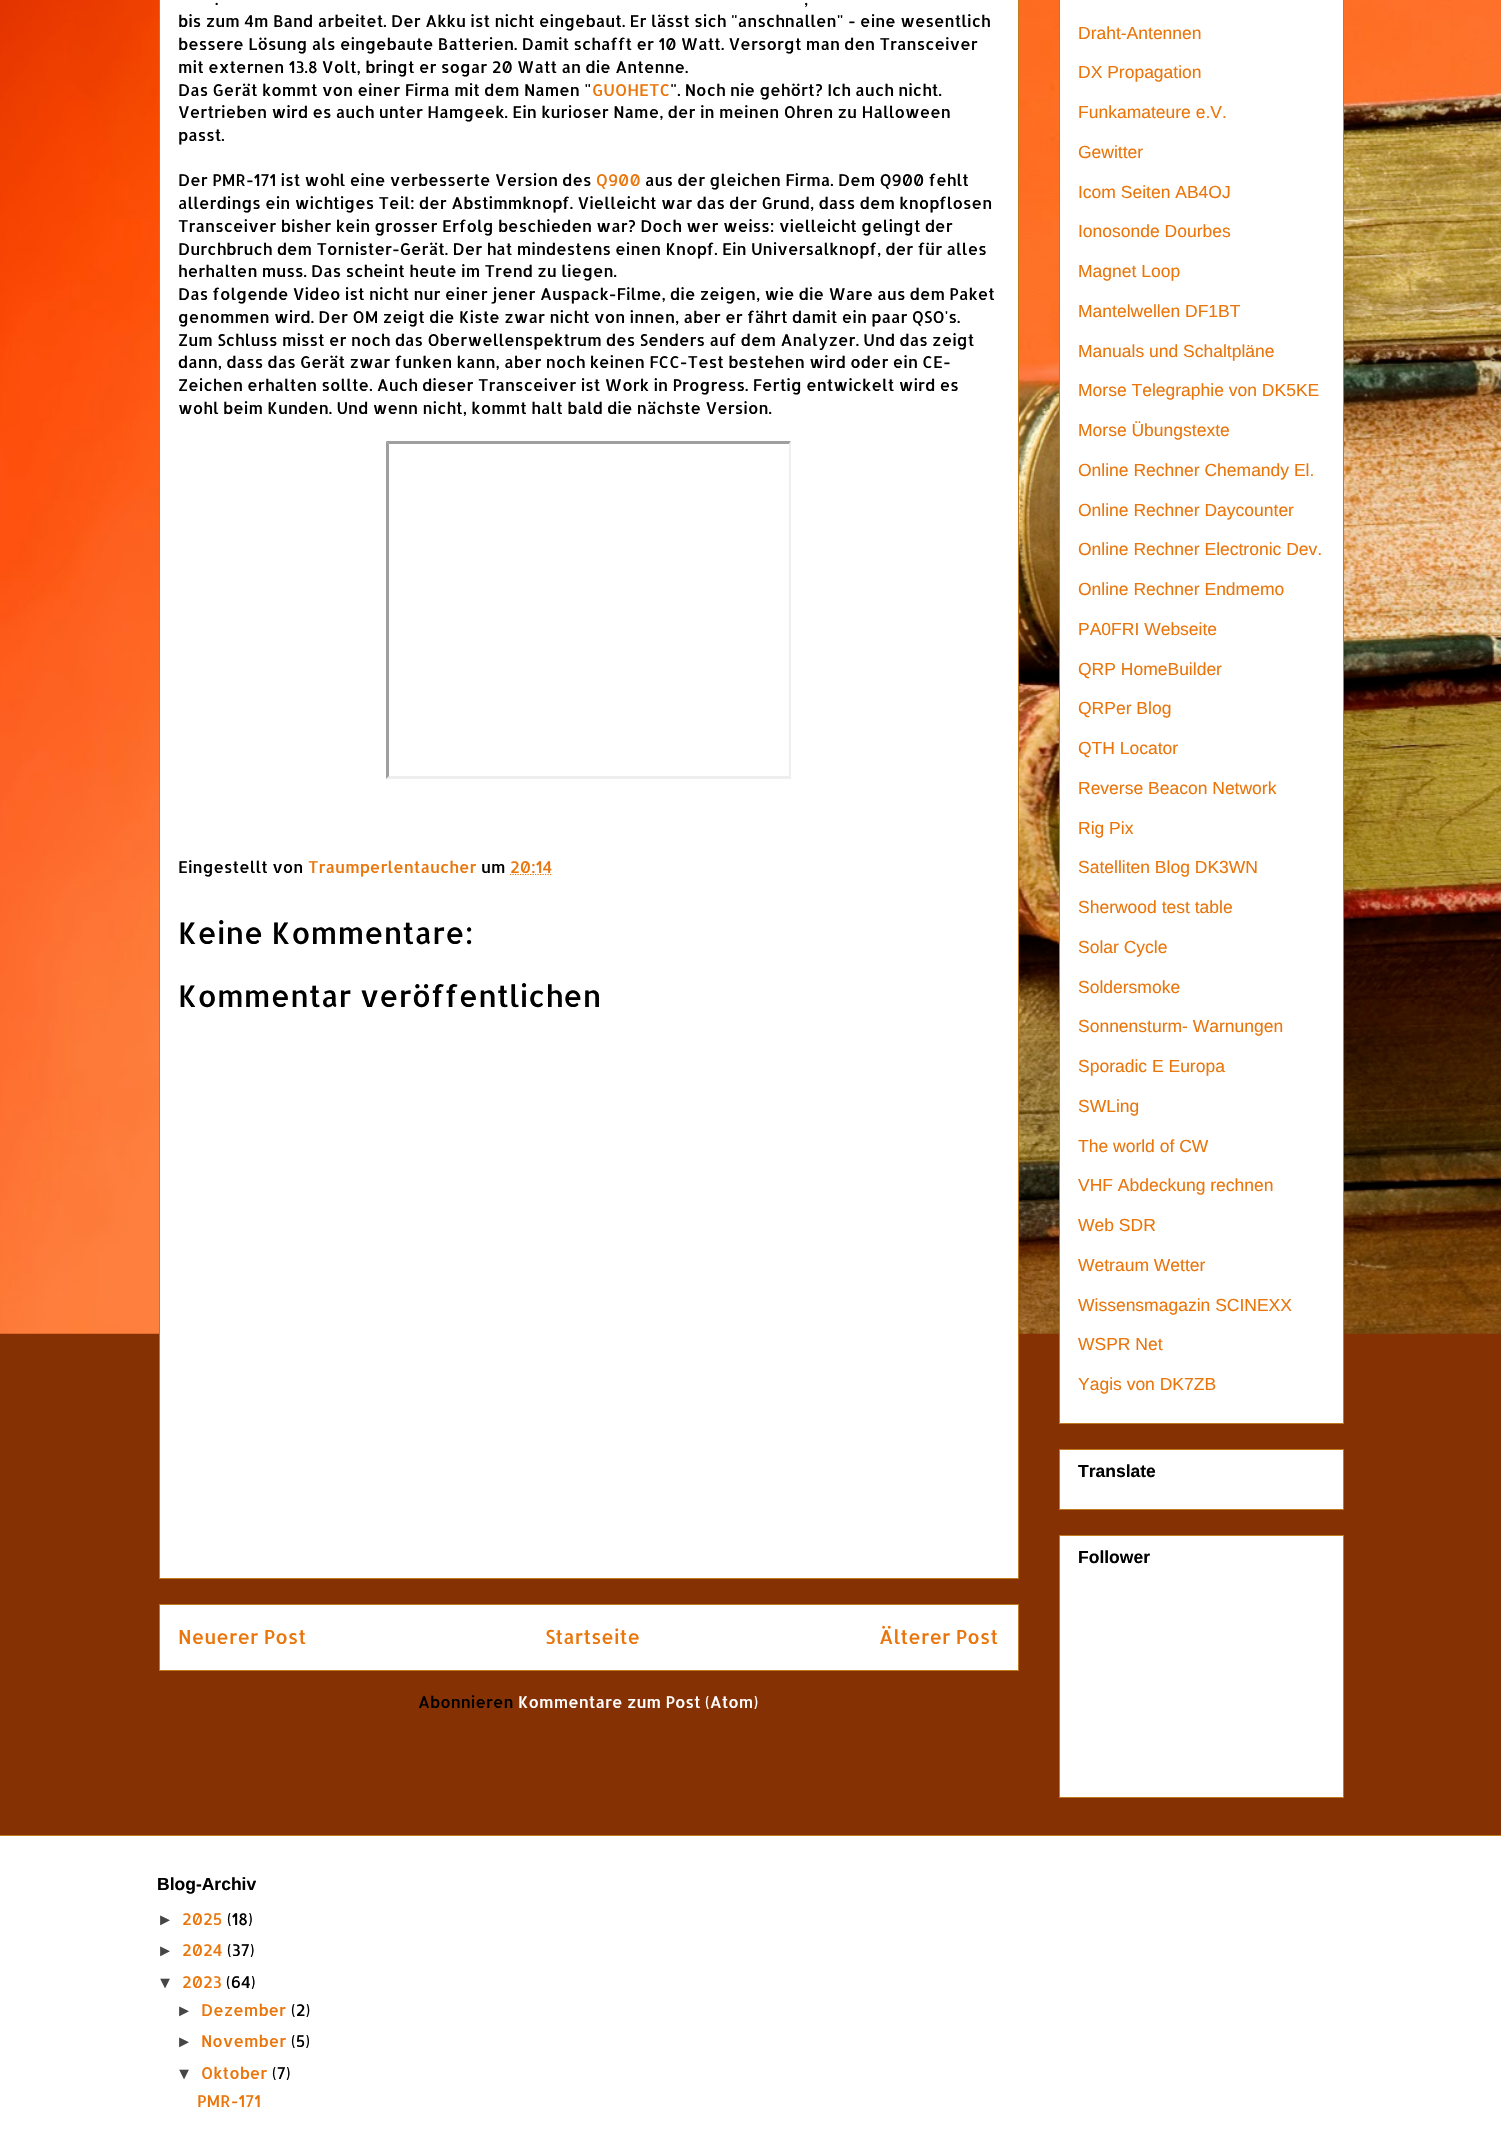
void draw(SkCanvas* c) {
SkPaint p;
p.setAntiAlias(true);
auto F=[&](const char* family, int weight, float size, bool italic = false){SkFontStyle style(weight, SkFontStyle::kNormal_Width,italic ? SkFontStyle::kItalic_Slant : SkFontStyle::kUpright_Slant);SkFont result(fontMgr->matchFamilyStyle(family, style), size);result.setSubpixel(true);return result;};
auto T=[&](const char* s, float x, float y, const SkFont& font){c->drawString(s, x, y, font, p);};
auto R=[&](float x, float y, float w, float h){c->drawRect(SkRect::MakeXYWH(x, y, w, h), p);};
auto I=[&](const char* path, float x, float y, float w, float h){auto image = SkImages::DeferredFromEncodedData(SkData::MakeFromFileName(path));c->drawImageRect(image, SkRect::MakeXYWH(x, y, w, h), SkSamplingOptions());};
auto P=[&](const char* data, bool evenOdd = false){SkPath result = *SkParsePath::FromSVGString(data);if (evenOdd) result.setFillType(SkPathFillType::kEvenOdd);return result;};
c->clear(0xff853103);
I("1.png",0,0,1501,1334);
p.setColor(0xffffffff);
c->drawRect(SkRect::MakeXYWH(159.5,-.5,859,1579),p);
p.setStroke(true);
p.setStrokeWidth(1);
p.setColor(0xffbf7a1d);
c->drawRect(SkRect::MakeXYWH(159.5,-.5,859,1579),p);
auto f1 = F("Allerta",400,16.25);
p.setStroke(false);
p.setColor(0xff000000);
T(".",215,5,f1);
T(",",804,5,f1);
T("bis zum 4m Band arbeitet. Der Akku ist nicht eingebaut. Er lässt sich \"anschnallen\" - eine wesentlich",178,27,f1);
T("bessere Lösung als eingebaute Batterien. Damit schafft er 10 Watt. Versorgt man den Transceiver",178,50,f1);
T("mit externen 13.8 Volt, bringt er sogar 20 Watt an die Antenne.",178,73,f1);
T("Das Gerät kommt von einer Firma mit dem Namen \"",178,96,f1);
p.setColor(0xffe9750b);
T("GUOHETC",592,96,f1);
p.setColor(0xff000000);
T("\". Noch nie gehört? Ich auch nicht.",670,96,f1);
T("Vertrieben wird es auch unter Hamgeek. Ein kurioser Name, der in meinen Ohren zu Halloween",178,118,f1);
T("passt.",178,141,f1);
T("Der PMR-171 ist wohl eine verbesserte Version des",178,186,f1);
p.setColor(0xffe9750b);
T("Q900",596,186,f1);
p.setColor(0xff000000);
T("aus der gleichen Firma. Dem Q900 fehlt",645,186,f1);
T("allerdings ein wichtiges Teil: der Abstimmknopf. Vielleicht war das der Grund, dass dem knopflosen",178,209,f1);
T("Transceiver bisher kein grosser Erfolg beschieden war? Doch wer weiss: vielleicht gelingt der",178,232,f1);
T("Durchbruch dem Tornister-Gerät. Der hat mindestens einen Knopf. Ein Universalknopf, der für alles",178,255,f1);
T("herhalten muss. Das scheint heute im Trend zu liegen.",178,277,f1);
T("Das folgende Video ist nicht nur einer jener Auspack-Filme, die zeigen, wie die Ware aus dem Paket",178,300,f1);
T("genommen wird. Der OM zeigt die Kiste zwar nicht von innen, aber er fährt damit ein paar QSO's.",178,323,f1);
T("Zum Schluss misst er noch das Oberwellenspektrum des Senders auf dem Analyzer. Und das zeigt",178,346,f1);
T("dann, dass das Gerät zwar funken kann, aber noch keinen FCC-Test bestehen wird oder ein CE-",178,368,f1);
T("Zeichen erhalten sollte. Auch dieser Transceiver ist Work in Progress. Fertig entwickelt wird es",178,391,f1);
T("wohl beim Kunden. Und wenn nicht, kommt halt bald die nächste Version.",178,414,f1);
p.setColor(0xff9f9f9f);
c->drawPath(P("M386 441h405l-2 3h-400z"),p);
p.setColor(0xffeeeeee);
c->drawPath(P("M791 441v338l-2-3v-332z"),p);
c->drawPath(P("M791 779h-405l3-3h400z"),p);
p.setColor(0xff9f9f9f);
c->drawPath(P("M386 779v-338l3 3v332z"),p);
p.setColor(0xff000000);
T("Eingestellt von",178,873,f1);
p.setColor(0xffe9750b);
T("Traumperlentaucher",308,873,f1);
p.setColor(0xff000000);
T("um",481,873,f1);
p.setStroke(true);
p.setStrokeWidth(1.2);
p.setColor(0xffe9750b);
p.setPathEffect(SkDashPathEffect::Make({{1.25f,1.25f}}, 0));
c->drawPath(P("M510 874.5h42"),p);
p.setPathEffect(nullptr);
p.setStroke(false);
T("20:14",510,873,f1);
auto f2 = F("Allerta",400,30);
p.setColor(0xff000000);
T("Keine Kommentare:",178,944,f2);
T("Kommentar veröffentlichen",178,1007,f2);
p.setColor(0xffffffff);
c->drawRect(SkRect::MakeXYWH(159.5,1604.5,859,66),p);
p.setStroke(true);
p.setStrokeWidth(1);
p.setColor(0xffbf7a1d);
c->drawRect(SkRect::MakeXYWH(159.5,1604.5,859,66),p);
auto f3 = F("Allerta",400,19.5);
p.setStroke(false);
p.setColor(0xffe9750b);
T("Neuerer Post",178,1644,f3);
T("Startseite",545,1644,f3);
T("Älterer Post",879,1644,f3);
p.setColor(0xff000000);
T("Abonnieren",418,1708,f1);
p.setColor(0xffffffff);
T("Kommentare zum Post (Atom)",518,1708,f1);
c->drawRect(SkRect::MakeXYWH(1059.5,-.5,284,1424),p);
p.setStroke(true);
p.setColor(0xffbf7a1d);
c->drawRect(SkRect::MakeXYWH(1059.5,-.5,284,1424),p);
auto f4 = F("Liberation Sans",400,17.5);
p.setStroke(false);
p.setColor(0xffe9750b);
T("Draht-Antennen",1078,39,f4);
T("DX Propagation",1078,78,f4);
T("Funkamateure e.V.",1078,118,f4);
T("Gewitter",1078,158,f4);
T("Icom Seiten AB4OJ",1078,198,f4);
T("Ionosonde Dourbes",1078,237,f4);
T("Magnet Loop",1078,277,f4);
T("Mantelwellen DF1BT",1078,317,f4);
T("Manuals und Schaltpläne",1078,357,f4);
T("Morse Telegraphie von DK5KE",1078,396,f4);
T("Morse Übungstexte",1078,436,f4);
T("Online Rechner Chemandy El.",1078,476,f4);
T("Online Rechner Daycounter",1078,516,f4);
T("Online Rechner Electronic Dev.",1078,555,f4);
T("Online Rechner Endmemo",1078,595,f4);
T("PA0FRI Webseite",1078,635,f4);
T("QRP HomeBuilder",1078,675,f4);
T("QRPer Blog",1078,714,f4);
T("QTH Locator",1078,754,f4);
T("Reverse Beacon Network",1078,794,f4);
T("Rig Pix",1078,834,f4);
T("Satelliten Blog DK3WN",1078,873,f4);
T("Sherwood test table",1078,913,f4);
T("Solar Cycle",1078,953,f4);
T("Soldersmoke",1078,993,f4);
T("Sonnensturm- Warnungen",1078,1032,f4);
T("Sporadic E Europa",1078,1072,f4);
T("SWLing",1078,1112,f4);
T("The world of CW",1078,1152,f4);
T("VHF Abdeckung rechnen",1078,1191,f4);
T("Web SDR",1078,1231,f4);
T("Wetraum Wetter",1078,1271,f4);
T("Wissensmagazin SCINEXX",1078,1311,f4);
T("WSPR Net",1078,1350,f4);
T("Yagis von DK7ZB",1078,1390,f4);
p.setColor(0xffffffff);
c->drawRect(SkRect::MakeXYWH(1059.5,1449.5,284,60),p);
p.setStroke(true);
p.setColor(0xffbf7a1d);
c->drawRect(SkRect::MakeXYWH(1059.5,1449.5,284,60),p);
auto f5 = F("Liberation Sans",700,17.5);
p.setStroke(false);
p.setColor(0xff000000);
T("Translate",1078,1477,f5);
p.setColor(0xffffffff);
c->drawRect(SkRect::MakeXYWH(1059.5,1535.5,284,262),p);
p.setStroke(true);
p.setColor(0xffbf7a1d);
c->drawRect(SkRect::MakeXYWH(1059.5,1535.5,284,262),p);
p.setStroke(false);
p.setColor(0xff000000);
T("Follower",1078,1563,f5);
p.setColor(0xffffffff);
R(0,1836,1501,294);
p.setColor(0xffbf7a1d);
R(0,1835,1501,1);
p.setColor(0xff000000);
T("Blog-Archiv",157,1890,f5);
auto f6 = F("Liberation Sans",400,16.25);
p.setColor(0xff464646);
T("►",157,1925,f6);
p.setColor(0xffe9750b);
T("2025",182,1925,f1);
p.setColor(0xff000000);
T("(18)",227,1925,f1);
p.setColor(0xff464646);
T("►",157,1956,f6);
p.setColor(0xffe9750b);
T("2024",182,1956,f1);
p.setColor(0xff000000);
T("(37)",227,1956,f1);
p.setColor(0xff464646);
T("▼",157,1988,f6);
p.setColor(0xffe9750b);
T("2023",182,1988,f1);
p.setColor(0xff000000);
T("(64)",226,1988,f1);
p.setColor(0xff464646);
T("►",176,2016,f6);
p.setColor(0xffe9750b);
T("Dezember",201,2016,f1);
p.setColor(0xff000000);
T("(2)",291,2016,f1);
p.setColor(0xff464646);
T("►",176,2047,f6);
p.setColor(0xffe9750b);
T("November",201,2047,f1);
p.setColor(0xff000000);
T("(5)",291,2047,f1);
p.setColor(0xff464646);
T("▼",176,2079,f6);
p.setColor(0xffe9750b);
T("Oktober",201,2079,f1);
p.setColor(0xff000000);
T("(7)",272,2079,f1);
p.setColor(0xffe9750b);
T("PMR-171",197,2107,f1);
}
